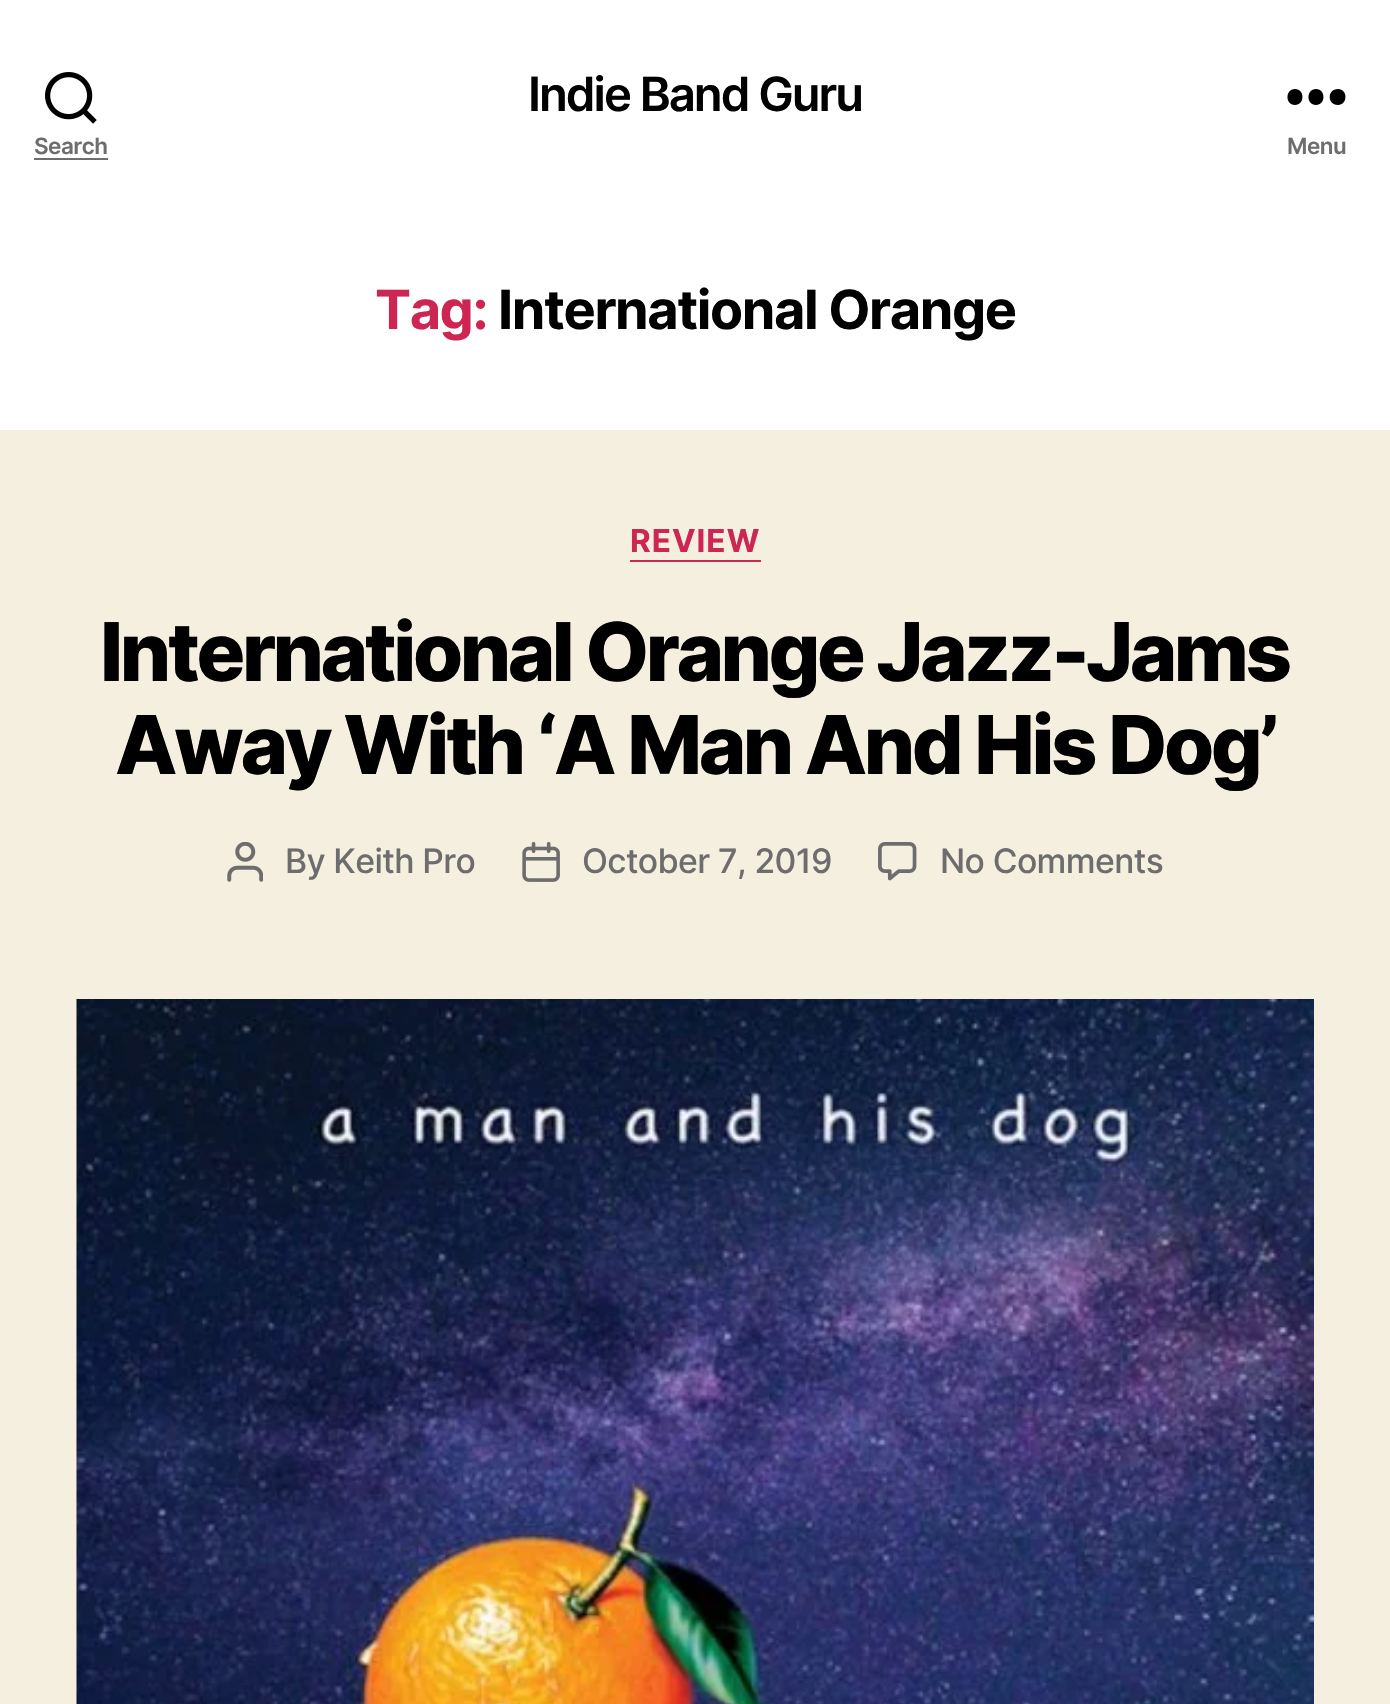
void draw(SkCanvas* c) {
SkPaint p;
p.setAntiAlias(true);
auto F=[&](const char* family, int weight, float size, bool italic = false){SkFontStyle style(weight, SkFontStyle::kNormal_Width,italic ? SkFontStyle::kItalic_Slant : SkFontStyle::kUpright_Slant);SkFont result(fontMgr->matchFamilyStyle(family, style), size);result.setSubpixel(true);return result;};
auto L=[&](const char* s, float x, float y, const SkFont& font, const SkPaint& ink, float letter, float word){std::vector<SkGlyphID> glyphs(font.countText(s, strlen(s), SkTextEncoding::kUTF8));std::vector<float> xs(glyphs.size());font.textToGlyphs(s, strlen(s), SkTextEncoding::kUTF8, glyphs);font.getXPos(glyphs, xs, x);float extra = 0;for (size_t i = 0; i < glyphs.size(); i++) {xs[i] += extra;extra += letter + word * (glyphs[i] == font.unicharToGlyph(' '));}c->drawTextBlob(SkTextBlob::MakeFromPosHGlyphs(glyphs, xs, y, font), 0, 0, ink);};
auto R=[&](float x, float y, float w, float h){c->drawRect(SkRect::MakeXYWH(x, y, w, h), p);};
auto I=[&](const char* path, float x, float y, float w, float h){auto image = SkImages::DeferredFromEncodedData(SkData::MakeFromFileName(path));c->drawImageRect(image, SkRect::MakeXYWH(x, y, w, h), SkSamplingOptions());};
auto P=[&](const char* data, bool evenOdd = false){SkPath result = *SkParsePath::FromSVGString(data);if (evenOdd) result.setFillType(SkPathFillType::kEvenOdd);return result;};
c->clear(0xfff5efe0);
p.setColor(0xffffffff);
R(0,0,1390,430);
auto f1 = F("Inter",600,47.25);
p.setColor(0xff000000);
L("Indie Band Guru",528,111,f1,p,-2,0);
I("1.png",45,72,52,52);
auto f2 = F("Inter",600,22.5);
p.setColor(0xff6d6d6d);
L("Search",34,154,f2,p,-.5,0);
R(34,158,74,2);
p.setColor(0xff000000);
c->drawPath(P("M1295 105c-10 0-10-16 0-16c10 0 10 16 0 16zm21 0c-10 0-10-16 0-16c10 0 10 16 0 16zm22 0c-11 0-11-16 0-16c10 0 10 16 0 16z",true),p);
p.setColor(0xff6d6d6d);
L("Menu",1287,154,f2,p,-.5,0);
auto f3 = F("Inter",700,54);
p.setColor(0xffcd2653);
L("Tag:",375,329,f3,p,-1.4,0);
p.setColor(0xff000000);
L("International Orange",498,329,f3,p,-1.4,0);
p.setColor(0xffcd2653);
R(630,560,131,2);
auto f4 = F("Inter",700,31.5);
L("REVIEW",630,552,f4,p,1,0);
auto f5 = F("Inter",800,81);
p.setColor(0xff000000);
L("International Orange Jazz-Jams",100,681,f5,p,-3.4,0);
L("Away With ‘A Man And His Dog’",115,774,f5,p,-3.4,0);
I("2.png",227,842,36,40);
auto f6 = F("Inter",500,33.75);
p.setColor(0xff6d6d6d);
L("By Keith Pro",285,873,f6,p,-.6,0);
I("3.png",522,842,38,40);
L("October 7, 2019",582,873,f6,p,-.6,0);
I("4.png",878,842,39,39);
L("No Comments",940,873,f6,p,-.6,0);
I("5.png",76,999,1238,705);
}
